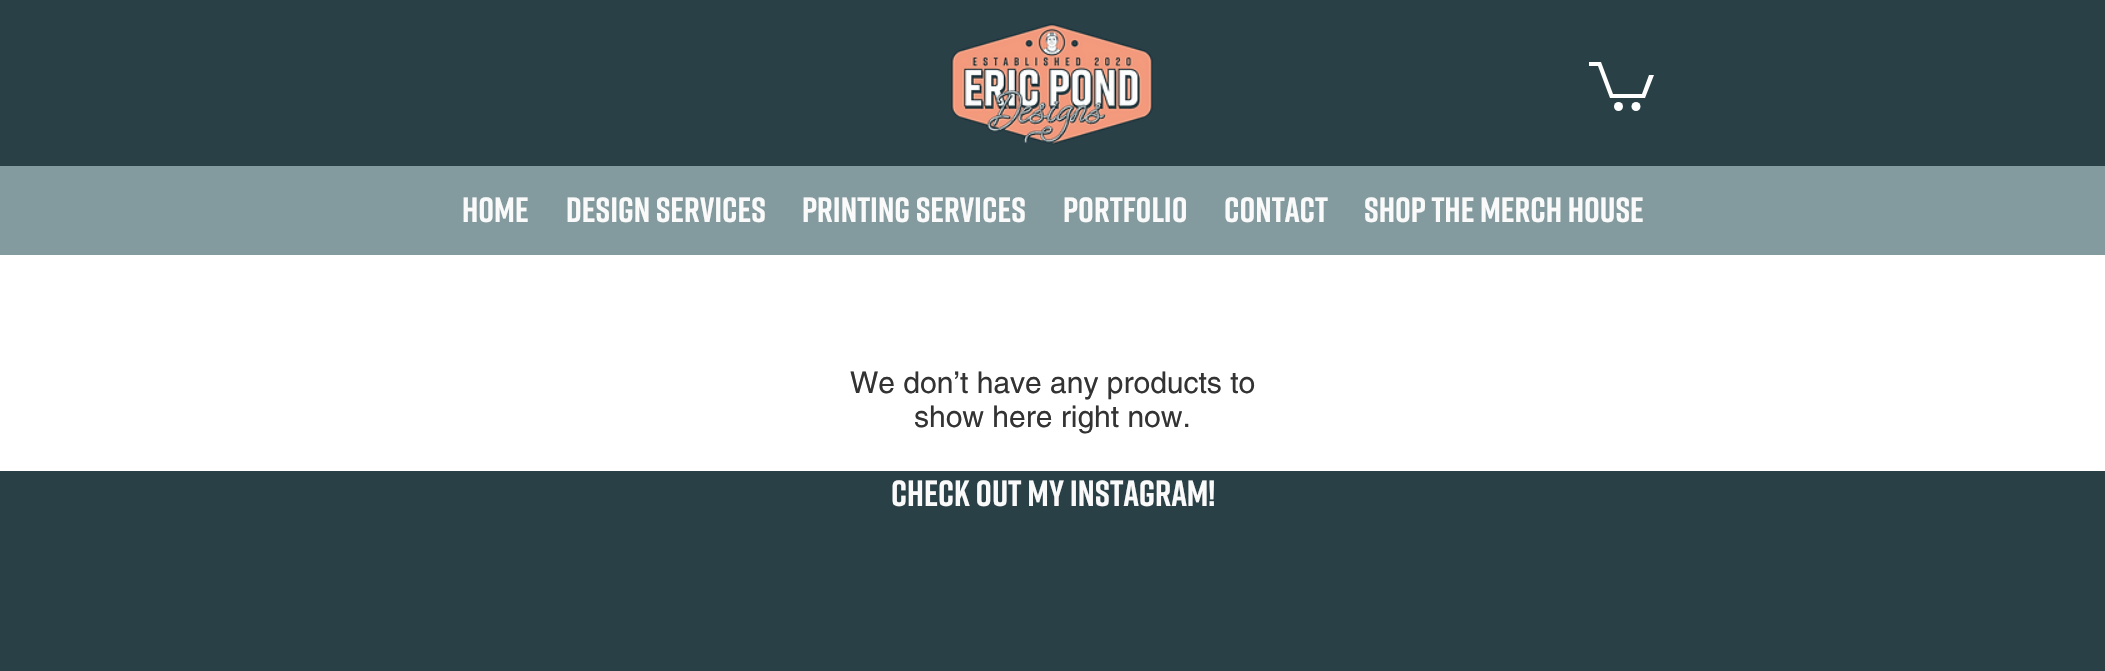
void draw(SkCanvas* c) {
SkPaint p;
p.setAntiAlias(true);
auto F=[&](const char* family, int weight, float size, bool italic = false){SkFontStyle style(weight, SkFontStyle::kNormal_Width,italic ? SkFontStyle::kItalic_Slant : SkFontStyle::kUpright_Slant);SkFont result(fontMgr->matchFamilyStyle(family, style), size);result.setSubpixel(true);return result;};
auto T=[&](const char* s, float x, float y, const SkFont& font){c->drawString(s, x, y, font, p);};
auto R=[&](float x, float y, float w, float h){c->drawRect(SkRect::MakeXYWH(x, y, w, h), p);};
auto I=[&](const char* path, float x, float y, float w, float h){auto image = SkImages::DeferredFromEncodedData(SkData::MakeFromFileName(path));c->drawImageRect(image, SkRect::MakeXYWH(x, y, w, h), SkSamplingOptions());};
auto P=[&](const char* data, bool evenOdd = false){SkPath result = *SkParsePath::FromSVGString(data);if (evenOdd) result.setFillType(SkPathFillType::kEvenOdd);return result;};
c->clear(0xffffffff);
p.setColor(0xff2a4047);
R(0,0,2105,166);
I("1.png",951,23,202,122);
p.setColor(0xffffffff);
c->drawPath(P("M1654 75l-9 23h-35l-12-32h-9v-4h12l12 32h29l7-19"),p);
c->drawCircle(1636,106.5,4.5,p);
c->drawCircle(1618.5,106.5,4.5,p);
p.setColor(0xff839b9e);
R(0,166,2105,89);
auto f1 = F("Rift",700,35);
p.setColor(0xfffafafa);
T("Home",462,222,f1);
T("Design Services",566,222,f1);
T("Printing Services",802,222,f1);
T("Portfolio",1063,222,f1);
T("Contact",1224,222,f1);
T("Shop the Merch House",1364,222,f1);
auto f2 = F("helvetica",400,30);
p.setColor(0xff333333);
T("We don’t have any products to",850,393,f2);
T("show here right now.",914,427,f2);
p.setColor(0xff2a4047);
R(0,471,2105,200);
auto f3 = F("Rift",700,36.25);
p.setColor(0xfffafafa);
T("check out my instagram!",891,506,f3);
}
